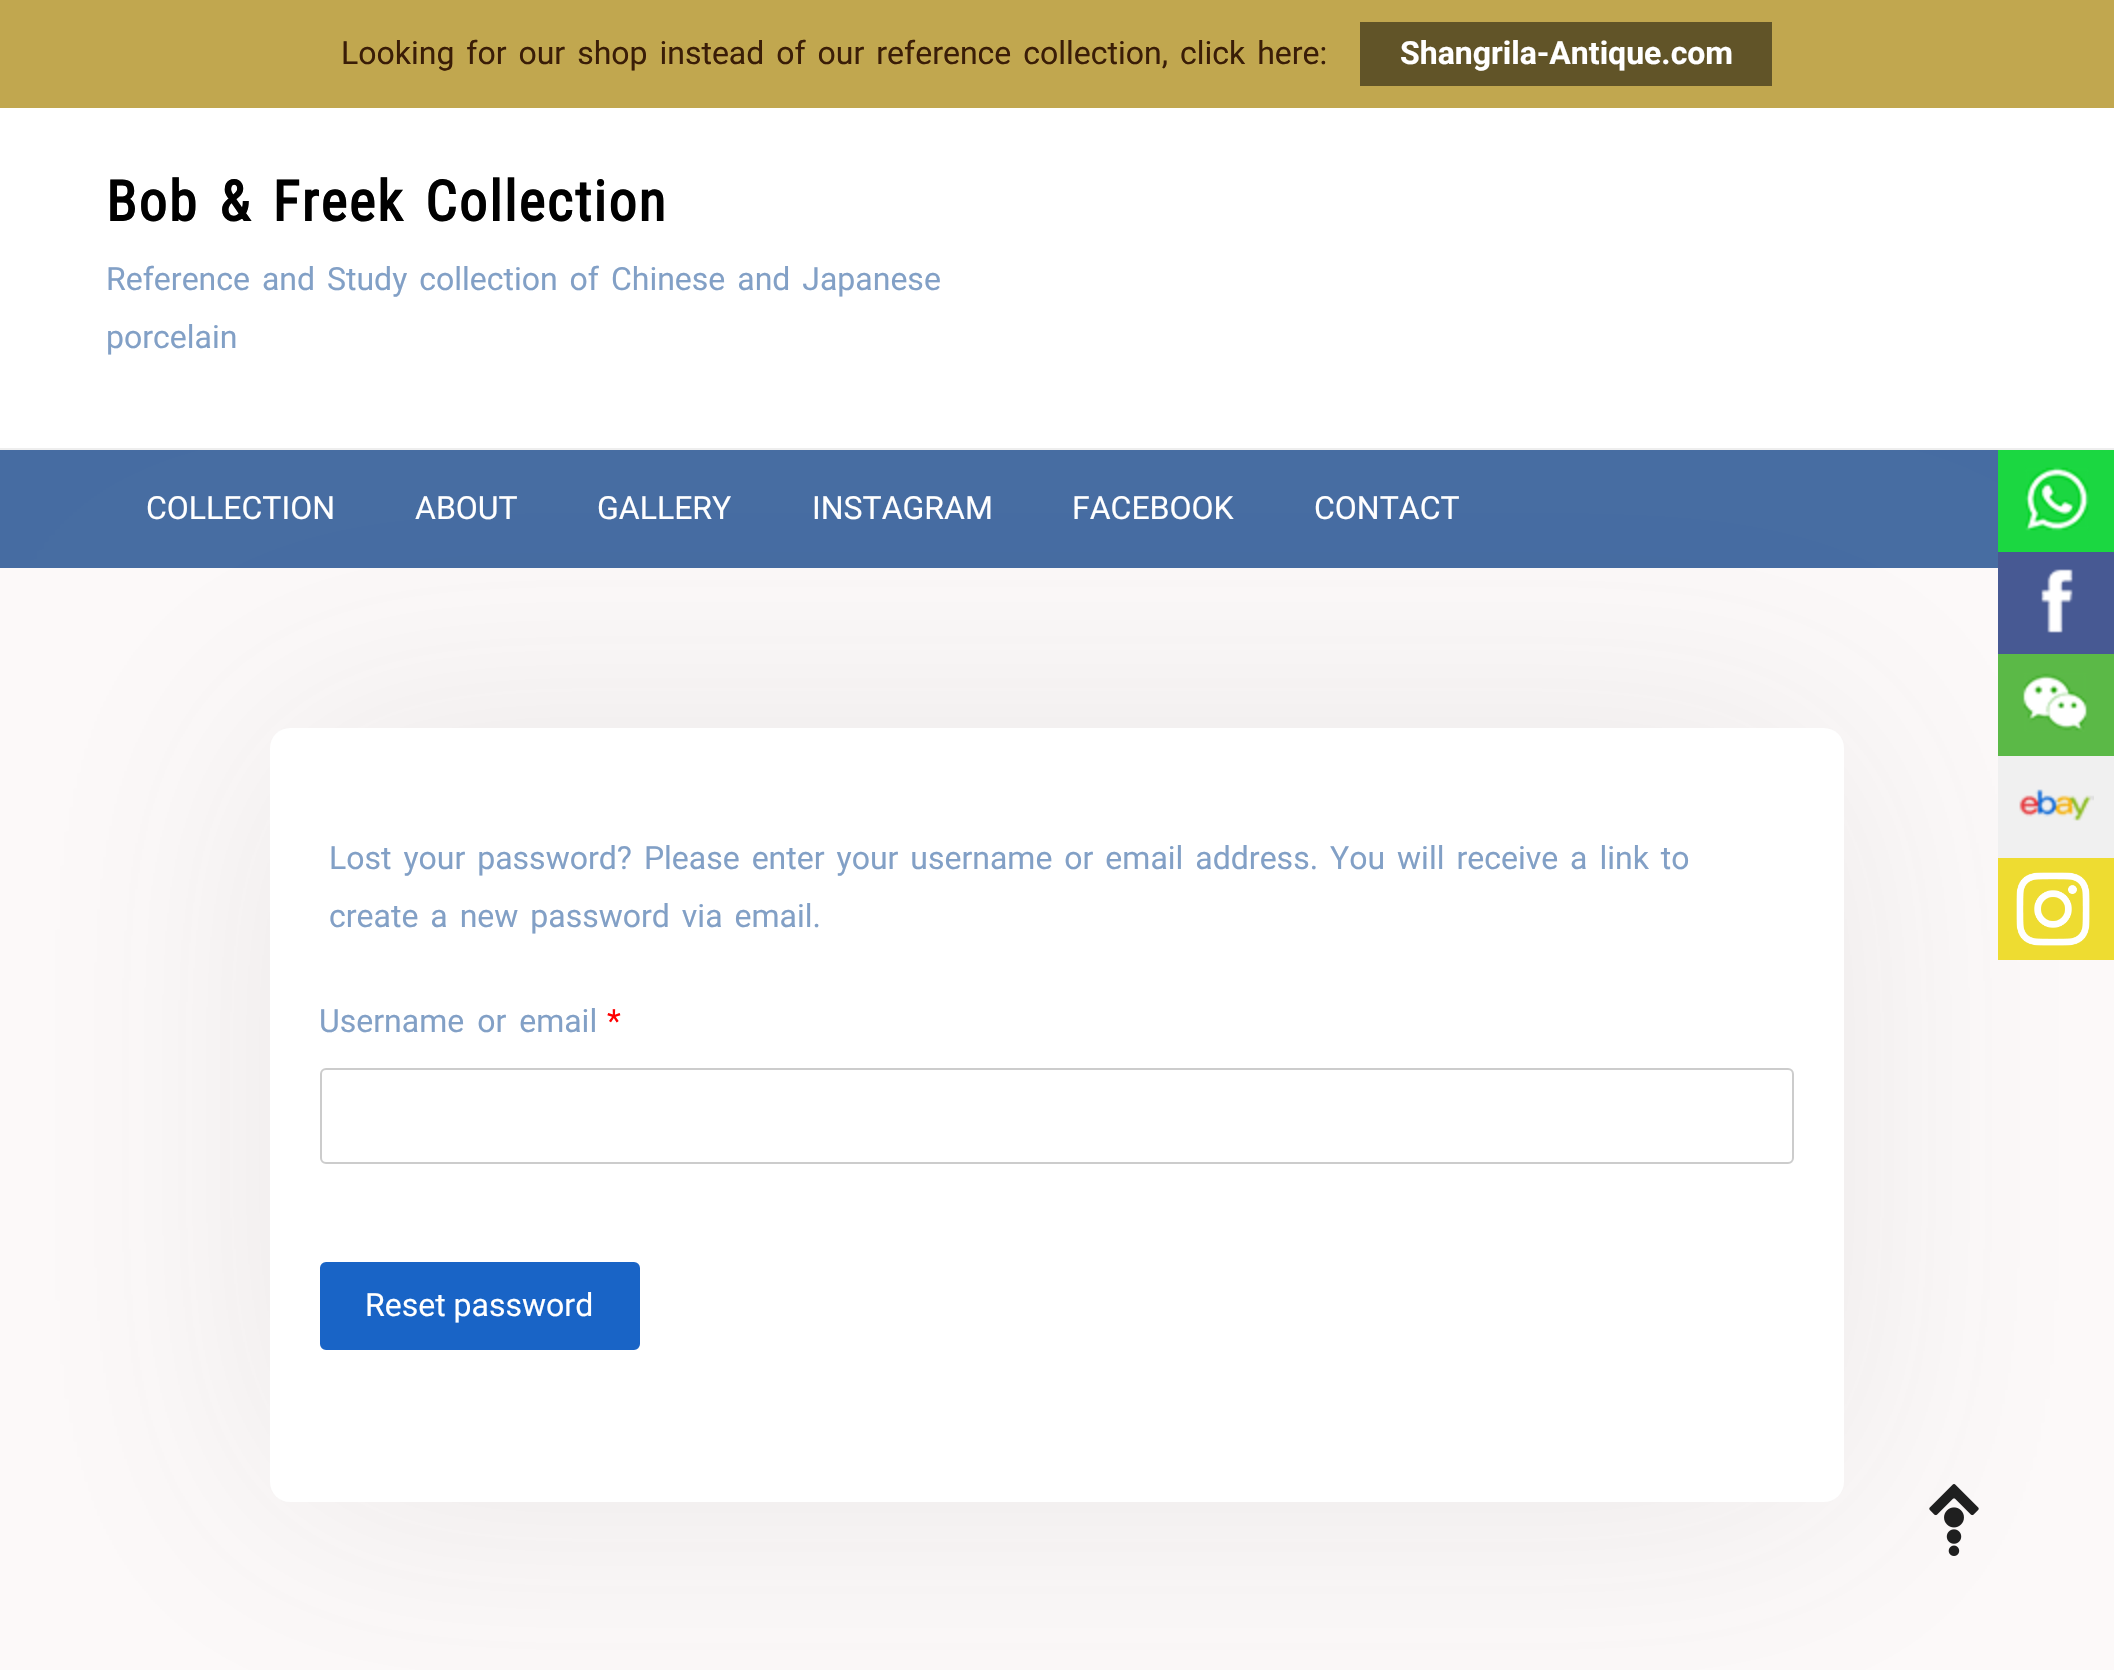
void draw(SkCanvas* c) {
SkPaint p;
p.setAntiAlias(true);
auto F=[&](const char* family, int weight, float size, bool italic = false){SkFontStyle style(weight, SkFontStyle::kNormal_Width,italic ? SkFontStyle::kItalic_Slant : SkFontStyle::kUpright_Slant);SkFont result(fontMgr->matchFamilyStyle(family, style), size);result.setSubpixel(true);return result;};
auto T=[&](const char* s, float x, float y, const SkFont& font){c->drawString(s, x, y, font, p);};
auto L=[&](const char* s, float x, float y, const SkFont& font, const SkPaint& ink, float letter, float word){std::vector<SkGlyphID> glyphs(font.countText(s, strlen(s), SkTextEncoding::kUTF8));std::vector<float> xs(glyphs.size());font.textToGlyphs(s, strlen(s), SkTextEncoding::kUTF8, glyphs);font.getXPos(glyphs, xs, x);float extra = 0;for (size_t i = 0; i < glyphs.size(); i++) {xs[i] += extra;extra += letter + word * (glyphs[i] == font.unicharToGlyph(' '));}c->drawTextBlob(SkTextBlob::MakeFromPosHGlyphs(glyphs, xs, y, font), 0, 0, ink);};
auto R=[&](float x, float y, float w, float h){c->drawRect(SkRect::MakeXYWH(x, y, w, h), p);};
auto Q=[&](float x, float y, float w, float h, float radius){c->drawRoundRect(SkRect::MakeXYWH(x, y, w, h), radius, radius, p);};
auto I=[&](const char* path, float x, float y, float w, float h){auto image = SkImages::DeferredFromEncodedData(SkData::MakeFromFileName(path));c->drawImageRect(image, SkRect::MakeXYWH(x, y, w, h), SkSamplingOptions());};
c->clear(0xfffcf9f9);
p.setColor(0xffc1a74f);
R(0,0,2114,108);
auto f1 = F("Roboto",400,32);
p.setColor(0xff3a1d07);
L("Looking for our shop instead of our reference collection, click here:",341,64,f1,p,0,4);
p.setColor(0xff615428);
R(1360,22,412,64);
auto f2 = F("Roboto",700,32);
p.setColor(0xffffffff);
T("Shangrila-Antique.com",1400,64,f2);
R(0,108,2114,340);
auto f3 = F("Roboto Condensed",700,56);
p.setColor(0xff000000);
L("Bob & Freek Collection",106,221,f3,p,2,6);
p.setColor(0xff82a0c6);
L("Reference and Study collection of Chinese and Japanese",106,290,f1,p,0,4);
T("porcelain",106,348,f1);
p.setColor(0xff466ca2);
R(0,450,1998,118);
p.setColor(0xffeeeeee);
R(0,448,2114,2);
p.setColor(0xffffffff);
T("COLLECTION",146,519,f1);
T("ABOUT",415,519,f1);
T("GALLERY",597,519,f1);
T("INSTAGRAM",812,519,f1);
T("FACEBOOK",1072,519,f1);
T("CONTACT",1314,519,f1);
p.setColor(0x1a4a4a4a);
p.setMaskFilter(SkMaskFilter::MakeBlur(kNormal_SkBlurStyle, 131));
c->drawRoundRect(SkRect::MakeXYWH(270,728,1574,774),20,20,p);
p.setMaskFilter(nullptr);
p.setColor(0xffffffff);
Q(270,728,1574,774,20);
p.setColor(0xff82a0c6);
L("Lost your password? Please enter your username or email address. You will receive a link to",329,869,f1,p,0,4);
L("create a new password via email.",329,927,f1,p,0,4);
L("Username or email",319,1032,f1,p,0,5);
p.setColor(0xffff0000);
T("*",607,1032,f1);
p.setStroke(true);
p.setStrokeWidth(2);
p.setColor(0xffcccccc);
c->drawRoundRect(SkRect::MakeXYWH(321,1069,1472,94),5,5,p);
p.setStroke(false);
p.setColor(0xff1964c6);
c->drawRoundRect(SkRect::MakeXYWH(321,1263,318,86),5,5,p);
p.setStroke(true);
c->drawRoundRect(SkRect::MakeXYWH(321,1263,318,86),5,5,p);
p.setStroke(false);
p.setColor(0xffffffff);
T("Reset password",365,1316,f1);
I("1.png",1929,1484,50,72);
p.setColor(0xff1bd741);
R(1998,450,116,102);
I("2.png",2025,467,64,64);
p.setColor(0xff475993);
R(1998,552,116,102);
I("3.png",2041,569,32,64);
p.setColor(0xff5bb947);
R(1998,654,116,102);
I("4.png",2023,673,64,59);
p.setColor(0xfff0f0f0);
R(1998,756,116,102);
I("5.png",2019,789,75,32);
p.setColor(0xffeedc31);
R(1998,858,116,102);
I("6.png",2016,872,74,74);
}
